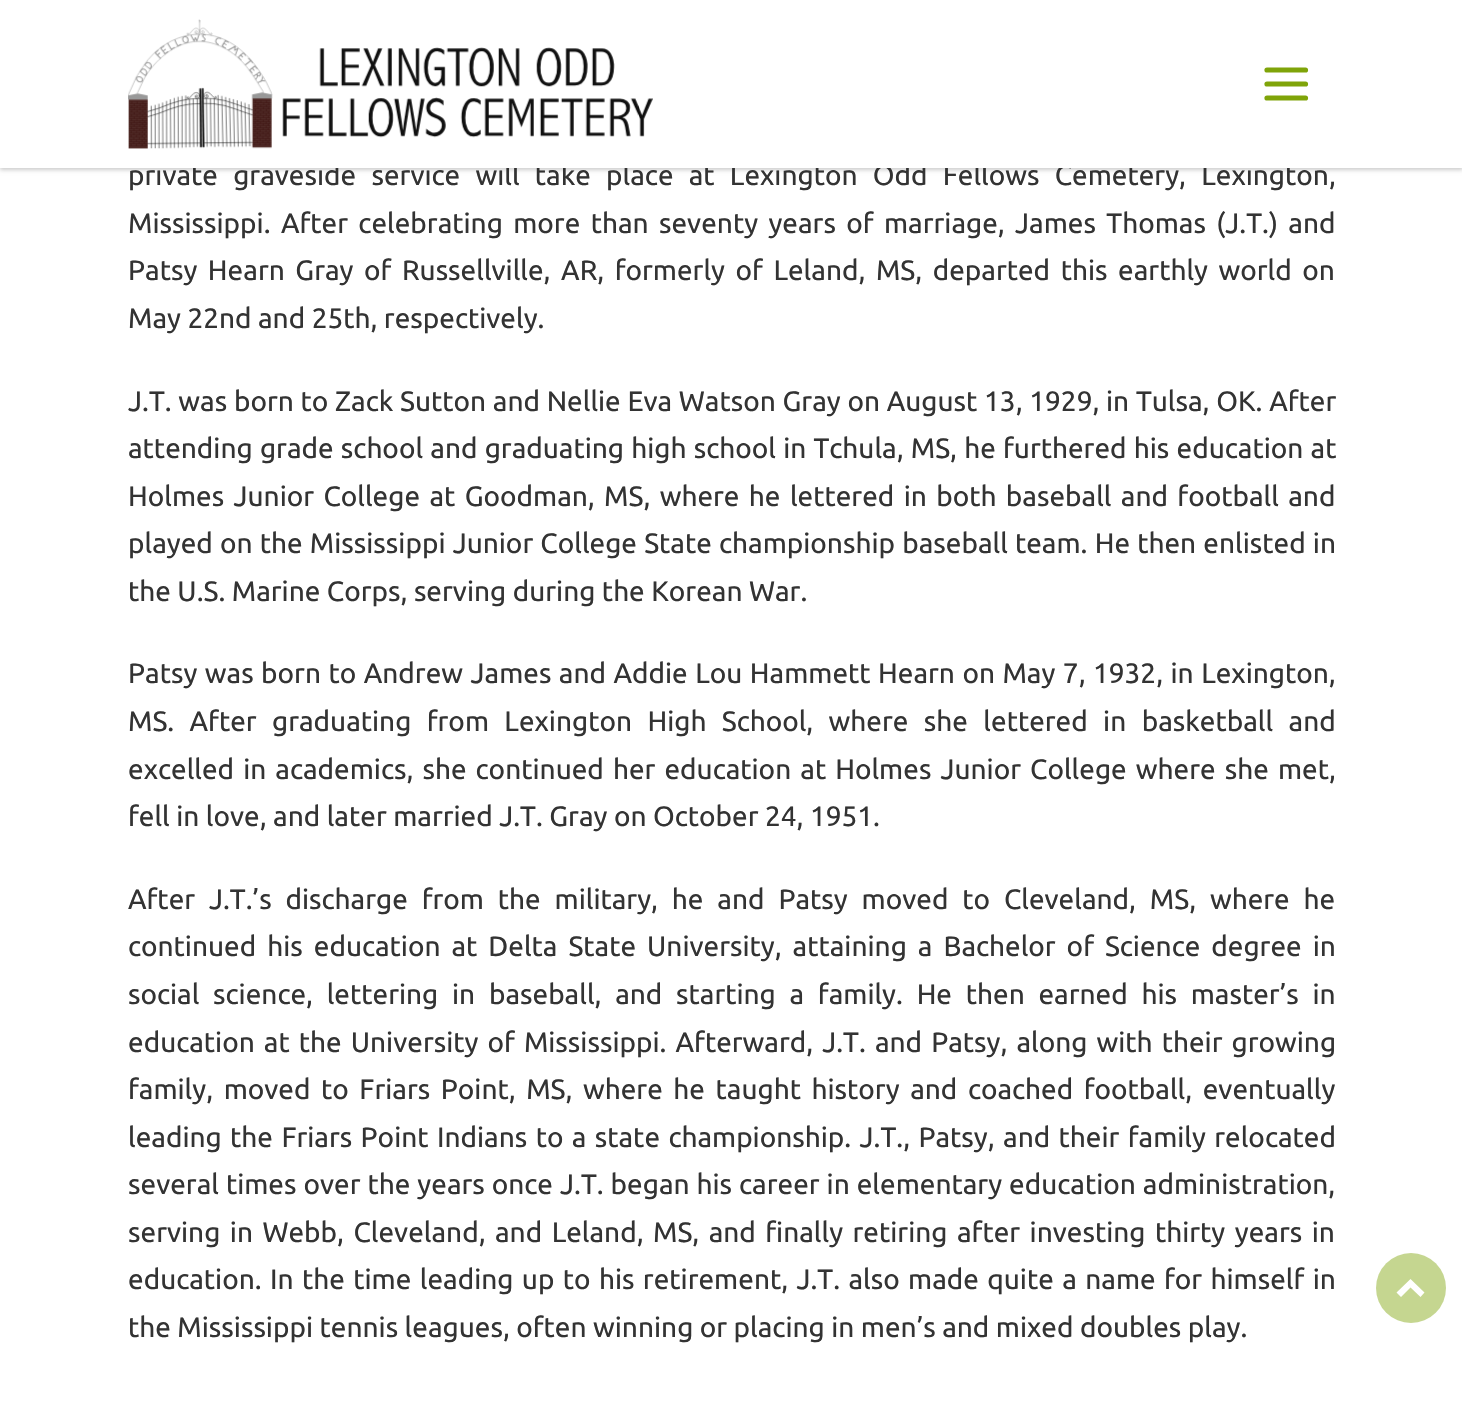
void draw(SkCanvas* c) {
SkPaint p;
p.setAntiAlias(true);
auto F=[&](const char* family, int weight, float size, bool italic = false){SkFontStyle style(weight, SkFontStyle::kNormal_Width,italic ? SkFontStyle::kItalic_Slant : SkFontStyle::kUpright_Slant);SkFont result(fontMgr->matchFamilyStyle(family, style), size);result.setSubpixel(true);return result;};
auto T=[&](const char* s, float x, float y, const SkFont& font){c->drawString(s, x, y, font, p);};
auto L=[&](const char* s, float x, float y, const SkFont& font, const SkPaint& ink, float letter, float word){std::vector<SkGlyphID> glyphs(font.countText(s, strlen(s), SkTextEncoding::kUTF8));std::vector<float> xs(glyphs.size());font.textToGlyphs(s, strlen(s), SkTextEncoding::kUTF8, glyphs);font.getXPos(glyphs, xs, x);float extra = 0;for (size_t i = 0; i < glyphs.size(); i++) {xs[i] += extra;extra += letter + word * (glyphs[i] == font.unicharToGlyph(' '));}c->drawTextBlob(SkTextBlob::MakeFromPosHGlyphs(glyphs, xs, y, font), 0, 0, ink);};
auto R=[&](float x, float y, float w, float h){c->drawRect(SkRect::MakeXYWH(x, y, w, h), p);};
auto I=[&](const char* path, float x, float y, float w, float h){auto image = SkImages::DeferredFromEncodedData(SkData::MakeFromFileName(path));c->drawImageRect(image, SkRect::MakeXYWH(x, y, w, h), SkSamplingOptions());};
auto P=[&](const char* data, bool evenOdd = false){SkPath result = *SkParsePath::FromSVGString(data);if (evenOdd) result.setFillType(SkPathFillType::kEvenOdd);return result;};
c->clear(0xffffffff);
p.setColor(0x33000000);
p.setMaskFilter(SkMaskFilter::MakeBlur(kNormal_SkBlurStyle, 2));
c->drawRect(SkRect::MakeXYWH(0,-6,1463,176),p);
p.setMaskFilter(nullptr);
auto f1 = F("Ubuntu",400,28);
p.setColor(0xff333333);
L("private graveside service will take place at Lexington Odd Fellows Cemetery, Lexington,",128,185,f1,p,0,8.75);
p.setColor(0xffffffff);
R(0,0,1462,168);
I("1.png",128,19,525,130);
p.setStroke(true);
p.setStrokeWidth(5.2);
p.setStrokeCap(SkPaint::kRound_Cap);
p.setColor(0xff7fa409);
c->drawPath(P("M1267 70h38.5m-38.5 14h38.5m-38.5 14h38.5"),p);
p.setStroke(false);
p.setColor(0xff333333);
L("Mississippi. After celebrating more than seventy years of marriage, James Thomas (J.T.) and",128,233,f1,p,0,3.9);
L("Patsy Hearn Gray of Russellville, AR, formerly of Leland, MS, departed this earthly world on",128,280,f1,p,0,4.1);
T("May 22nd and 25th, respectively.",128,328,f1);
L("J.T. was born to Zack Sutton and Nellie Eva Watson Gray on August 13, 1929, in Tulsa, OK. After",128,411,f1,p,0,.25);
L("attending grade school and graduating high school in Tchula, MS, he furthered his education at",128,458,f1,p,0,.75);
L("Holmes Junior College at Goodman, MS, where he lettered in both baseball and football and",128,506,f1,p,0,2.9);
L("played on the Mississippi Junior College State championship baseball team. He then enlisted in",128,553,f1,p,0,.7);
T("the U.S. Marine Corps, serving during the Korean War.",128,601,f1);
L("Patsy was born to Andrew James and Addie Lou Hammett Hearn on May 7, 1932, in Lexington,",128,683,f1,p,0,1);
L("MS. After graduating from Lexington High School, where she lettered in basketball and",128,731,f1,p,0,8.9);
L("excelled in academics, she continued her education at Holmes Junior College where she met,",128,779,f1,p,0,2.6);
T("fell in love, and later married J.T. Gray on October 24, 1951.",128,826,f1);
L("After J.T.’s discharge from the military, he and Patsy moved to Cleveland, MS, where he",128,909,f1,p,0,7.4);
L("continued his education at Delta State University, attaining a Bachelor of Science degree in",128,956,f1,p,0,4.5);
L("social science, lettering in baseball, and starting a family. He then earned his master’s in",128,1004,f1,p,0,7.25);
L("education at the University of Mississippi. Afterward, J.T. and Patsy, along with their growing",128,1052,f1,p,0,2.6);
L("family, moved to Friars Point, MS, where he taught history and coached football, eventually",128,1099,f1,p,0,4.1);
L("leading the Friars Point Indians to a state championship. J.T., Patsy, and their family relocated",128,1147,f1,p,0,1.9);
L("several times over the years once J.T. began his career in elementary education administration,",128,1194,f1,p,0,.5);
L("serving in Webb, Cleveland, and Leland, MS, and finally retiring after investing thirty years in",128,1242,f1,p,0,3);
L("education. In the time leading up to his retirement, J.T. also made quite a name for himself in",128,1289,f1,p,0,1.9);
T("the Mississippi tennis leagues, often winning or placing in men’s and mixed doubles play.",128,1337,f1);
p.setColor(0xffc5d690);
c->drawCircle(1411,1288,35,p);
p.setColor(0xffffffff);
c->drawPath(P("M1410.5 1279l14 13.5l-4 4.5l-10-9.5l-9.5 9.5l-4.5-4.5z"),p);
}
